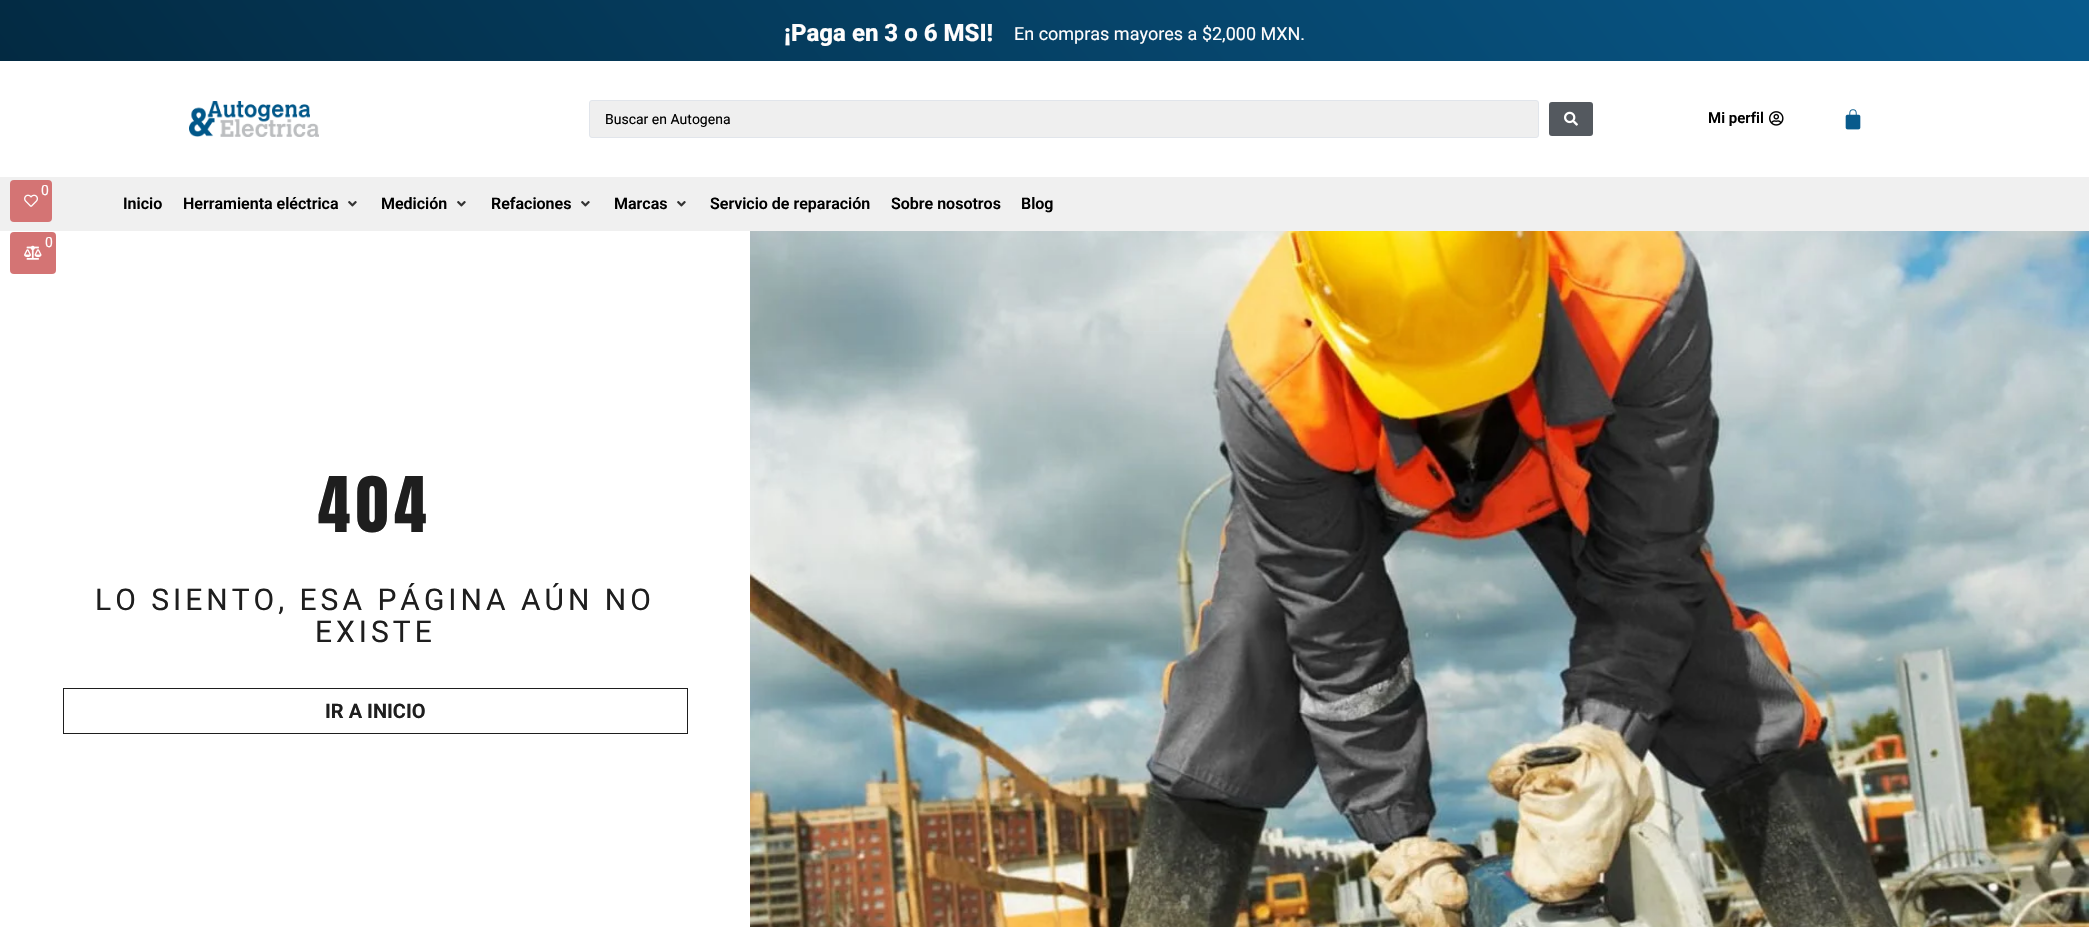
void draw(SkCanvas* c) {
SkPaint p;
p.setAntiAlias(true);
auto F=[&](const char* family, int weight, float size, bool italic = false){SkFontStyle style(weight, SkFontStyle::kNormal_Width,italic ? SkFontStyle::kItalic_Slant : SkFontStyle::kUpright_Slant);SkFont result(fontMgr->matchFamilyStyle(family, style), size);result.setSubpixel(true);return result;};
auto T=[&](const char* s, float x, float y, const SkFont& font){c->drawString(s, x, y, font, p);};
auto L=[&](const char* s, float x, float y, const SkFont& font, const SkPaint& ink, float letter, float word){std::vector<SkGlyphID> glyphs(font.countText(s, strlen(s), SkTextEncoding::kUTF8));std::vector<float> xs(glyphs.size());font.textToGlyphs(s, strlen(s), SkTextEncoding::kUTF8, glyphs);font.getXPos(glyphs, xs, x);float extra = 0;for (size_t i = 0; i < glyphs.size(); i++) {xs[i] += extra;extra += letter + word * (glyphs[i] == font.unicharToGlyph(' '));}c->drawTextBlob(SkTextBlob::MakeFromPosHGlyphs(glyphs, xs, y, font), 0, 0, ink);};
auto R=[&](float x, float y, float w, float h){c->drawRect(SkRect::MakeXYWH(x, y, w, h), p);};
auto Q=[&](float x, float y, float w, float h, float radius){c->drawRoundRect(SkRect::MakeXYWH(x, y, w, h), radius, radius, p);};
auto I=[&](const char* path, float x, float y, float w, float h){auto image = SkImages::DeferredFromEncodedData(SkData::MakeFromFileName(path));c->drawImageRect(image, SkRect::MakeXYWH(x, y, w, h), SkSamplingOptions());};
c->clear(0xffffffff);
{
const SkColor colors[] = {0xff085a8c,0xff032a42};
const float stops[] = {0,1};
const SkPoint ends[] = {{1708,-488}, {381,549}};
p.setShader(SkGradientShader::MakeLinear(ends, colors, stops, 2, SkTileMode::kClamp));
p.setAlpha(255);
}
R(0,0,2089,61);
auto f1 = F("Roboto",800,24);
p.setShader(nullptr);
p.setColor(0xfffffdfd);
T("¡Paga en 3 o 6 MSI!",784,41,f1);
auto f2 = F("Roboto",400,18);
T("En compras mayores a $2,000 MXN.",1014,40,f2);
I("1.png",189,101,130,36);
p.setColor(0xffefefef);
c->drawRoundRect(SkRect::MakeXYWH(589.5,100.5,949,37),2.5,2.5,p);
p.setStroke(true);
p.setStrokeWidth(1);
p.setColor(0xffe1e5eb);
c->drawRoundRect(SkRect::MakeXYWH(589.5,100.5,949,37),2.5,2.5,p);
auto f3 = F("Roboto",400,14);
p.setStroke(false);
p.setColor(0xff000000);
T("Buscar en Autogena",605,124,f3);
p.setColor(0xff54595f);
Q(1549,102,44,34,3);
I("2.png",1564,111,14,15);
auto f4 = F("Roboto",600,15);
p.setColor(0xff000000);
T("Mi perfil",1708,123,f4);
I("3.png",1769,111,15,15);
I("4.png",1845,109,16,21);
p.setColor(0xfff0f0f0);
R(0,177,2089,54);
p.setColor(0xffd47474);
Q(10,180,42,42,4);
p.setColor(0xfffffdfd);
T("0",41,195,f3);
I("5.png",24,194,14,13);
p.setColor(0xffd47474);
Q(10,232,46,42,4);
p.setColor(0xfffffdfd);
T("0",45,247,f3);
I("6.png",24,245,18,15);
auto f5 = F("Roboto",600,16);
p.setColor(0xff000000);
T("Inicio",123,209,f5);
T("Herramienta eléctrica",183,209,f5);
I("7.png",348,201,9,6);
T("Medición",381,209,f5);
I("7.png",457,201,9,6);
T("Refaciones",491,209,f5);
I("7.png",581,201,9,6);
T("Marcas",614,209,f5);
I("7.png",677,201,9,6);
T("Servicio de reparación",710,209,f5);
T("Sobre nosotros",891,209,f5);
T("Blog",1021,209,f5);
auto f6 = F("Anton",400,65);
p.setColor(0xff1e1e1e);
L("404",318,532,f6,p,6,0);
auto f7 = F("Roboto",400,30);
L("LO SIENTO, ESA PÁGINA AÚN NO",95,610,f7,p,4,0);
L("EXISTE",315,642,f7,p,4,0);
p.setStroke(true);
c->drawRect(SkRect::MakeXYWH(63.5,688.5,624,45),p);
auto f8 = F("Roboto",700,20);
p.setStroke(false);
T("IR A INICIO",325,718,f8);
I("8.png",750,231,1339,696);
}
